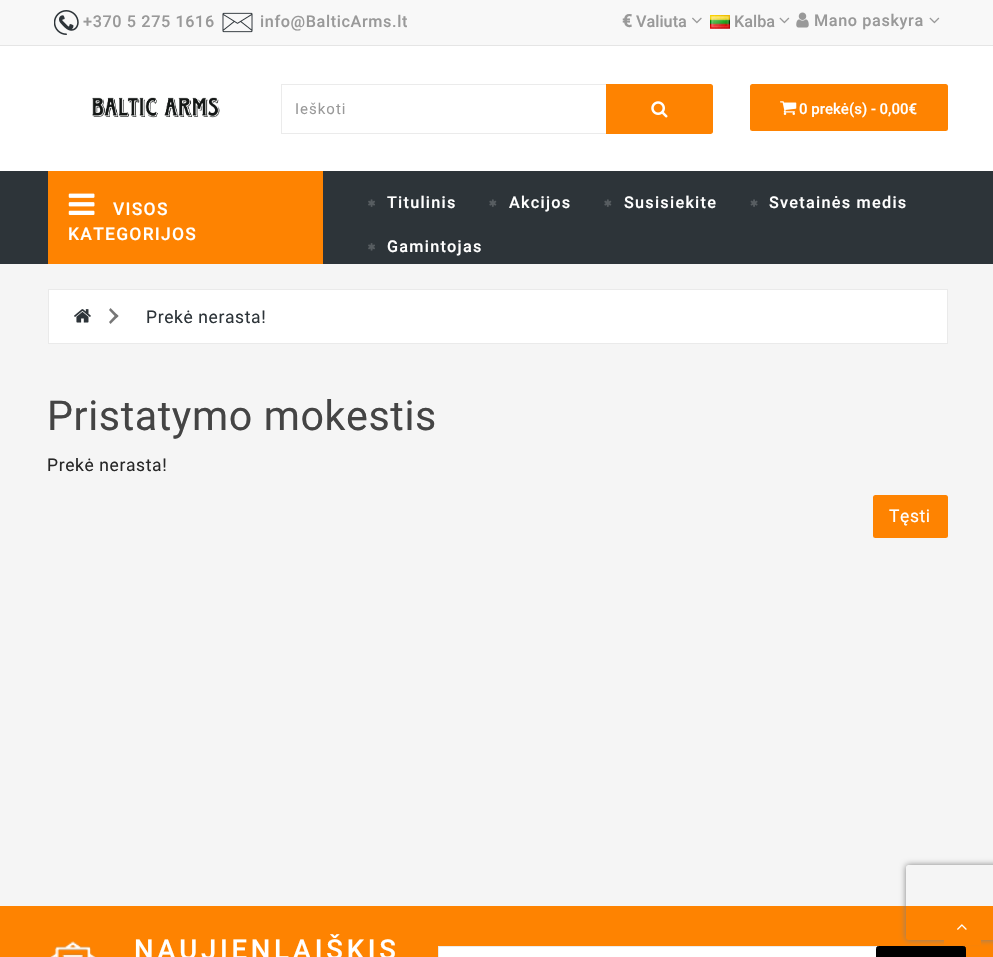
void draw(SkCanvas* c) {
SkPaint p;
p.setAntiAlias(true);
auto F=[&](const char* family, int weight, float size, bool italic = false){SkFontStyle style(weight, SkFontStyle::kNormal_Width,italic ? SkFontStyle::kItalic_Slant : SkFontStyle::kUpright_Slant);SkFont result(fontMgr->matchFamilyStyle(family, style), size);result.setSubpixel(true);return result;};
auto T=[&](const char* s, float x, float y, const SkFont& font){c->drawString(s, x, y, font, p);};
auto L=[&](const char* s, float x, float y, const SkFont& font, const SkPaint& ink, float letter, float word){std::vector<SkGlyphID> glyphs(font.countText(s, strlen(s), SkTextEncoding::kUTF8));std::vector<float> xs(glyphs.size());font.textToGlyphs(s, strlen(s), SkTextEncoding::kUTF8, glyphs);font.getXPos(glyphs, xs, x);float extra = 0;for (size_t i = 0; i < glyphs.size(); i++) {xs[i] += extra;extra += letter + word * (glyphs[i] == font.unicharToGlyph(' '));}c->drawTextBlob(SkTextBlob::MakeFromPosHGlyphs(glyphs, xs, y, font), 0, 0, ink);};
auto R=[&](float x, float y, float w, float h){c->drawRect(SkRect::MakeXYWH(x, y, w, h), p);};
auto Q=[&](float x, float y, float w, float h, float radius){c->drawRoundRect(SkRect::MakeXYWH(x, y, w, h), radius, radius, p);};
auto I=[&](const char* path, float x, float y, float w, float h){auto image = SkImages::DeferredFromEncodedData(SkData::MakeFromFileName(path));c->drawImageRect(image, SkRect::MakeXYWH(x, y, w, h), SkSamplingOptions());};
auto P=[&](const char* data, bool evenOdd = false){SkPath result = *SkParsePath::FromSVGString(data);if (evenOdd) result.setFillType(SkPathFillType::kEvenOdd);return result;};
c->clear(0xfff5f5f5);
p.setColor(0xfff8f8f8);
R(0,0,993,45);
p.setColor(0xffe5e5e5);
R(0,45,993,1);
I("1.png",54,10,25,25);
auto f1 = F("Roboto",500,16.25);
p.setColor(0xff999999);
L("+370 5 275 1616",83,27,f1,p,.6,0);
I("2.png",222,12,31,21);
L("info@BalticArms.lt",260,27,f1,p,.6,0);
auto f2 = F("Roboto",700,17.5);
T("€",622,27,f2);
T("Valiuta",636,27,f1);
I("3.png",692,17,10,7);
I("4.png",710,15,20,14);
T("Kalba",734,27,f1);
I("5.png",779,17,11,7);
I("6.png",796,12,13,16);
L("Mano paskyra",814,26,f1,p,.6,0);
I("5.png",929,17,11,7);
p.setColor(0xffffffff);
R(0,46,993,125);
I("7.png",92,97,128,21);
p.setStroke(true);
p.setStrokeWidth(1);
p.setColor(0xffebebeb);
c->drawRect(SkRect::MakeXYWH(281.5,84.5,326,49),p);
auto f3 = F("Roboto",400,15);
p.setStroke(false);
p.setColor(0xff999999);
L("Ieškoti",295,114,f3,p,1,0);
p.setColor(0xfffe8301);
c->drawPath(P("M606 84h104.5c1.5 0 2.5 1 2.5 2.5v45c0 1.5-1 2.5-2.5 2.5h-104.5z"),p);
I("8.png",651,101,17,17);
Q(750,84,198,47,2.5);
I("9.png",780,101,17,14);
auto f4 = F("Roboto",500,15);
p.setColor(0xffffffff);
T("0 prekė(s) - 0,00€",799,114,f4);
p.setColor(0xff2d3439);
R(0,171,993,93);
p.setColor(0xfffe8301);
R(48,171,275,93);
I("10.png",68,193,27,22);
auto f5 = F("Roboto",500,17.5);
p.setColor(0xffffffff);
L("VISOS",113,215,f5,p,1.25,0);
L("KATEGORIJOS",68,240,f5,p,1.25,0);
I("11.png",368,199,7,8);
L("Titulinis",387,208,f1,p,1.25,0);
I("12.png",489,199,8,8);
L("Akcijos",509,208,f1,p,1.25,0);
I("12.png",604,199,8,8);
L("Susisiekite",624,208,f1,p,1.25,0);
I("13.png",750,199,8,8);
L("Svetainės medis",769,208,f1,p,1.25,0);
I("14.png",368,243,7,8);
L("Gamintojas",387,252,f1,p,1.25,0);
c->drawRect(SkRect::MakeXYWH(48.5,289.5,899,54),p);
p.setStroke(true);
p.setColor(0xffeaeaea);
c->drawRect(SkRect::MakeXYWH(48.5,289.5,899,54),p);
I("15.png",74,309,17,14);
p.setStroke(false);
p.setColor(0xff777777);
c->drawPath(P("M109 310l1.5-2l8 8l-2 2z"),p);
c->drawPath(P("M109 322l7.5-8l2 2l-8 8z"),p);
auto f6 = F("Roboto",400,17.5);
p.setColor(0xff2d3439);
L("Prekė nerasta!",146,323,f6,p,.6,0);
auto f7 = F("Roboto",400,41.25);
p.setColor(0xff444444);
L("Pristatymo mokestis",47,430,f7,p,.6,0);
p.setColor(0xff282828);
L("Prekė nerasta!",47,471,f6,p,.6,0);
p.setColor(0xfffe8301);
Q(873,495,75,43,2.5);
p.setColor(0xffffffff);
L("Tęsti",889,522,f6,p,.6,0);
p.setColor(0xfffe8301);
R(0,906,993,51);
p.setColor(0xffffffff);
R(439,947,438,10);
p.setStroke(true);
p.setColor(0xffebebeb);
c->drawRect(SkRect::MakeXYWH(438.5,946.5,442,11),p);
p.setStroke(false);
p.setColor(0xff000000);
c->drawRoundRect(SkRect::MakeXYWH(876.5,946.5,89,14),2,2,p);
p.setStroke(true);
c->drawRoundRect(SkRect::MakeXYWH(876.5,946.5,89,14),2,2,p);
c->save();
c->clipPath(P("M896 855h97v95h-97zm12.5 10h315c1.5 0 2.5 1 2.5 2.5v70c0 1.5-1 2.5-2.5 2.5h-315c-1.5 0-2.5-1-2.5-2.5v-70c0-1.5 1-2.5 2.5-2.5z",true),true);
p.setStroke(false);
p.setColor(0xff808080);
p.setMaskFilter(SkMaskFilter::MakeBlur(kNormal_SkBlurStyle, 3));
c->drawRoundRect(SkRect::MakeXYWH(906,865,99,75),2.5,2.5,p);
p.setMaskFilter(nullptr);
c->restore();
I("16.png",50,941,46,16);
auto f8 = F("Roboto",500,27.5);
p.setColor(0xffffffff);
L("NAUJIENLAIŠKIS",134,959,f8,p,3.75,0);
p.setColor(0xfffe8301);
R(944,940,37,5);
I("17.png",957,924,10,6);
}
